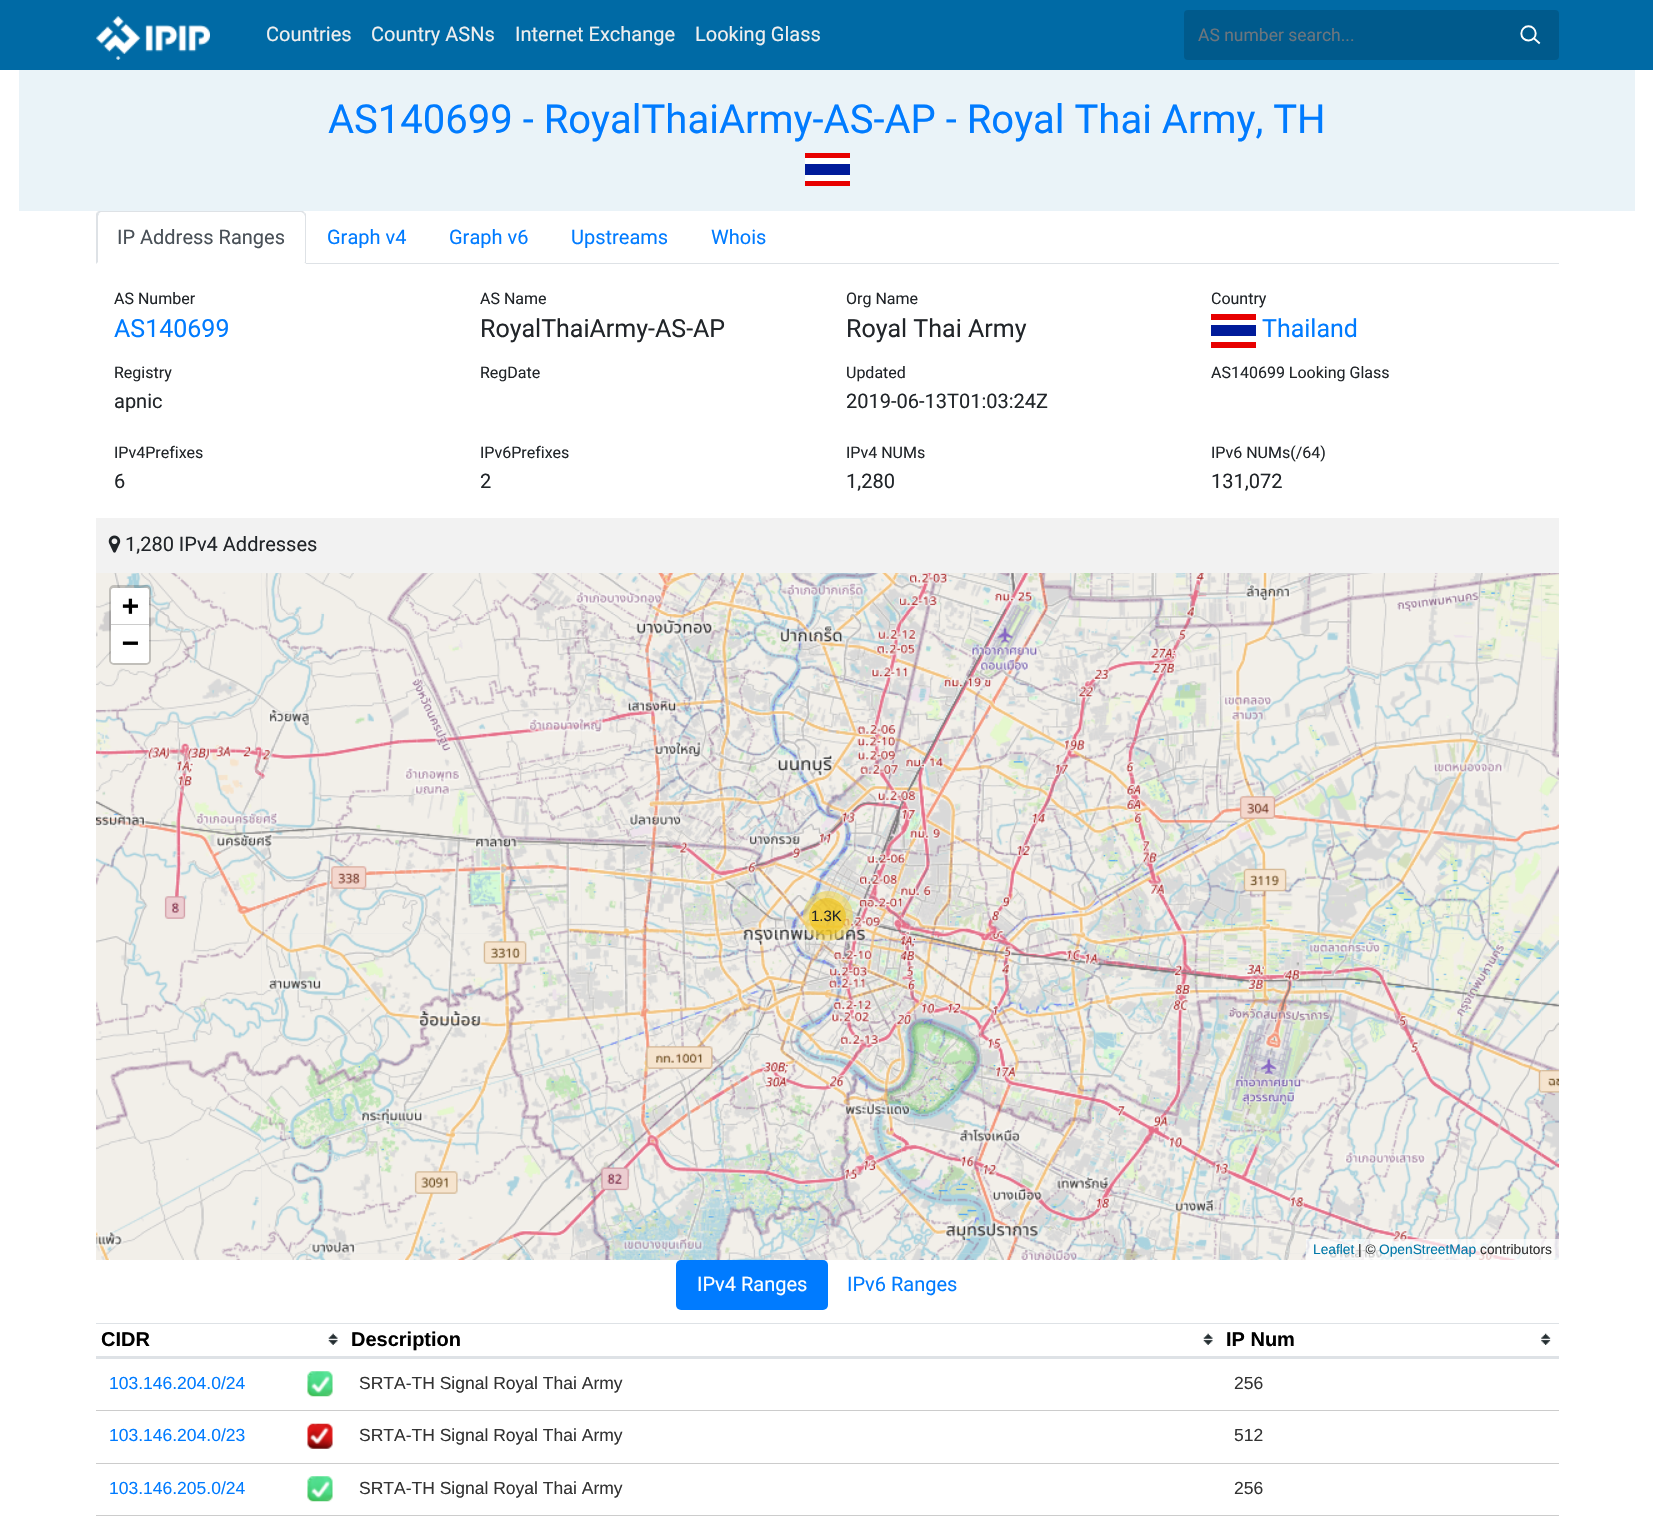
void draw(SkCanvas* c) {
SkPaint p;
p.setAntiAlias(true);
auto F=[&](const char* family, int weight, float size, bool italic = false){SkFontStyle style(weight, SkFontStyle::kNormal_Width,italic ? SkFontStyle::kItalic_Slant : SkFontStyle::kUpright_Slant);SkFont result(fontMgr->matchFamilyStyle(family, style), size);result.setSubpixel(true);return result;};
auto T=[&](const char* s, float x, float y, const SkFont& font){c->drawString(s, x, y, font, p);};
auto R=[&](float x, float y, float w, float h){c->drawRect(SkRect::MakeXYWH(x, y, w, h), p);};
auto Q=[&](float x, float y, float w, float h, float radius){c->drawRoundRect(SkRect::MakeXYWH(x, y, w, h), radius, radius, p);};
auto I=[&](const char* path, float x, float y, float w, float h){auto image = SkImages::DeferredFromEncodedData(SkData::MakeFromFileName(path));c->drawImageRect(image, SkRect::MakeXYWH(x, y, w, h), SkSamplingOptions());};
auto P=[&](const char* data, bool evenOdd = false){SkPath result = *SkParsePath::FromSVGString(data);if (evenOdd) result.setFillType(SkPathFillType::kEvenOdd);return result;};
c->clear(0xffffffff);
p.setColor(0xff006aa5);
R(0,0,1653,70);
I("1.png",96,16,114,44);
auto f1 = F("Roboto",400,20);
p.setColor(0xffefefef);
T("Countries",266,41,f1);
T("Country ASNs",371,41,f1);
T("Internet Exchange",515,41,f1);
T("Looking Glass",695,41,f1);
p.setColor(0xff005a8c);
Q(1184,10,375,50,4);
auto f2 = F("Roboto",400,17.5);
p.setColor(0xff6c757d);
T("AS number search...",1198,41,f2);
I("2.png",1520,25,21,20);
p.setColor(0xffeaf3f8);
R(19,70,1616,141);
auto f3 = F("Roboto",400,40);
p.setColor(0xff007bff);
T("AS140699 - RoyalThaiArmy-AS-AP - Royal Thai Army, TH",328,133,f3);
p.setColor(0xffe70000);
R(805,153,45,5);
p.setColor(0xffffffff);
R(805,158,45,23);
p.setColor(0xff001b9a);
R(805,164,45,11);
p.setColor(0xffe70000);
R(805,181,45,5);
p.setColor(0xffdee2e6);
R(306,263,1253,1);
c->drawPath(P("M101 212c-1 0-2 1-2 2l-2-2l2-1h204l2 2l-1 1c-1-1-2-2-3-2z"),p);
c->drawPath(P("M305 213c1 0 1 2 1 3v48l-2-2h1v-46l-1-2z"),p);
p.setColor(0xffffffff);
c->drawPath(P("M306 264h-210l2-2h206z"),p);
p.setColor(0xffdee2e6);
c->drawPath(P("M96 264v-50l1-2l2 2l-1 2v46z"),p);
p.setColor(0xff495057);
T("IP Address Ranges",117,244,f1);
p.setColor(0xff007bff);
T("Graph v4",327,244,f1);
T("Graph v6",449,244,f1);
T("Upstreams",571,244,f1);
T("Whois",711,244,f1);
auto f4 = F("Roboto",400,16);
p.setColor(0xff212529);
T("AS Number",114,304,f4);
auto f5 = F("Roboto",400,25);
p.setColor(0xff007bff);
T("AS140699",114,337,f5);
p.setColor(0xff212529);
T("AS Name",480,304,f4);
T("RoyalThaiArmy-AS-AP",480,337,f5);
T("Org Name",846,304,f4);
T("Royal Thai Army",846,337,f5);
T("Country",1211,304,f4);
p.setColor(0xff007bff);
T("Thailand",1262,337,f5);
p.setColor(0xff001b9a);
R(1211,325,45,11);
p.setColor(0xffe70000);
R(1211,314,45,6);
R(1211,342,45,6);
p.setColor(0xff212529);
T("Registry",114,378,f4);
T("apnic",114,408,f1);
T("RegDate",480,378,f4);
T("Updated",846,378,f4);
T("2019-06-13T01:03:24Z",846,408,f1);
T("AS140699 Looking Glass",1211,378,f4);
T("IPv4Prefixes",114,458,f4);
T("6",114,488,f1);
T("IPv6Prefixes",480,458,f4);
T("2",480,488,f1);
T("IPv4 NUMs",846,458,f4);
T("1,280",846,488,f1);
T("IPv6 NUMs(/64)",1211,458,f4);
T("131,072",1211,488,f1);
p.setColor(0xfff2f2f2);
R(96,518,1463,55);
I("3.png",108,535,13,18);
p.setColor(0xff212529);
T("1,280 IPv4 Addresses",125,551,f1);
p.setColor(0xffdddddd);
R(261,573,1281,687);
I("4.png",96,573,165,41);
I("10.png",96,614,165,320);
p.setStroke(true);
p.setStrokeWidth(3);
p.setColor(0x33000000);
c->drawRoundRect(SkRect::MakeXYWH(110.5,586.5,39,77),3.5,3.5,p);
p.setStroke(false);
p.setColor(0xffffffff);
c->drawPath(P("M113.5 588h33c1.5 0 2.5 1 2.5 2.5v34.5h-38v-34.5c0-1.5 1-2.5 2.5-2.5z"),p);
p.setColor(0xffcccccc);
R(111,624,38,1);
auto f6 = F("DejaVu Sans Mono",700,28);
p.setColor(0xff000000);
T("+",122,615,f6);
p.setColor(0xffffffff);
c->drawPath(P("M111 625h38v35.5c0 1.5-1 2.5-2.5 2.5h-33c-1.5 0-2.5-1-2.5-2.5z"),p);
p.setColor(0xff000000);
T("−",122,652,f6);
I("12.png",581,613,321,321);
I("13.png",901,613,321,321);
I("18.png",581,933,321,321);
I("19.png",901,933,321,321);
I("14.png",1221,613,321,321);
I("20.png",1221,933,321,321);
I("21.png",1541,934,18,320);
I("26.png",1221,1253,320,7);
I("27.png",1541,1253,18,7);
p.setColor(0xb3ffffff);
R(1306,1239,253,21);
auto f7 = F("Liberation Sans",400,13.75);
p.setColor(0xff0078a8);
T("Leaflet",1313,1254,f7);
p.setColor(0xff333333);
T("| ©",1358,1254,f7);
p.setColor(0xff0078a8);
T("OpenStreetMap",1379,1254,f7);
p.setColor(0xff333333);
T("contributors",1480,1254,f7);
I("6.png",581,573,320,41);
I("11.png",261,613,321,321);
I("5.png",261,573,320,41);
I("7.png",901,573,320,41);
I("8.png",1221,573,320,41);
I("15.png",1541,613,18,321);
I("9.png",1541,573,18,41);
I("16.png",96,933,165,321);
I("17.png",261,933,321,321);
I("22.png",96,1253,165,7);
I("23.png",261,1253,320,7);
I("24.png",581,1253,320,7);
I("25.png",901,1253,320,7);
p.setColor(0x99f1d357);
c->drawCircle(828,916,25,p);
p.setColor(0x99f0c20c);
c->drawCircle(827.5,916.5,18.5,p);
auto f8 = F("Liberation Sans",400,15);
p.setColor(0xff212529);
T("1.3K",811,921,f8);
p.setColor(0xff007bff);
Q(676,1260,152,50,5);
p.setColor(0xffffffff);
T("IPv4 Ranges",697,1291,f1);
p.setColor(0xff007bff);
T("IPv6 Ranges",847,1291,f1);
I("28.png",328,1333,10,12);
auto f9 = F("Liberation Sans",700,20);
p.setColor(0xff000000);
T("CIDR",101,1346,f9);
I("28.png",1203,1333,10,12);
T("Description",351,1346,f9);
I("29.png",1541,1333,10,12);
p.setColor(0xffdee2e6);
R(96,1323,1463,1);
R(96,1356,1463,3);
p.setColor(0xff000000);
T("IP Num",1226,1346,f9);
auto f10 = F("Liberation Sans",400,17.5);
p.setColor(0xff007bff);
T("103.146.204.0/24",109,1389,f10);
I("30.png",307,1371,26,26);
p.setColor(0xff333333);
T("SRTA-TH Signal Royal Thai Army",359,1389,f10);
p.setColor(0xffcccccc);
R(96,1410,1463,1);
p.setColor(0xff333333);
T("256",1234,1389,f10);
p.setColor(0xff007bff);
T("103.146.204.0/23",109,1441,f10);
I("31.png",307,1423,26,26);
p.setColor(0xff333333);
T("SRTA-TH Signal Royal Thai Army",359,1441,f10);
p.setColor(0xffcccccc);
R(96,1463,1463,1);
p.setColor(0xff333333);
T("512",1234,1441,f10);
p.setColor(0xff007bff);
T("103.146.205.0/24",109,1494,f10);
I("30.png",307,1476,26,26);
p.setColor(0xff333333);
T("SRTA-TH Signal Royal Thai Army",359,1494,f10);
p.setColor(0xffcccccc);
R(96,1515,1463,1);
p.setColor(0xff333333);
T("256",1234,1494,f10);
}
